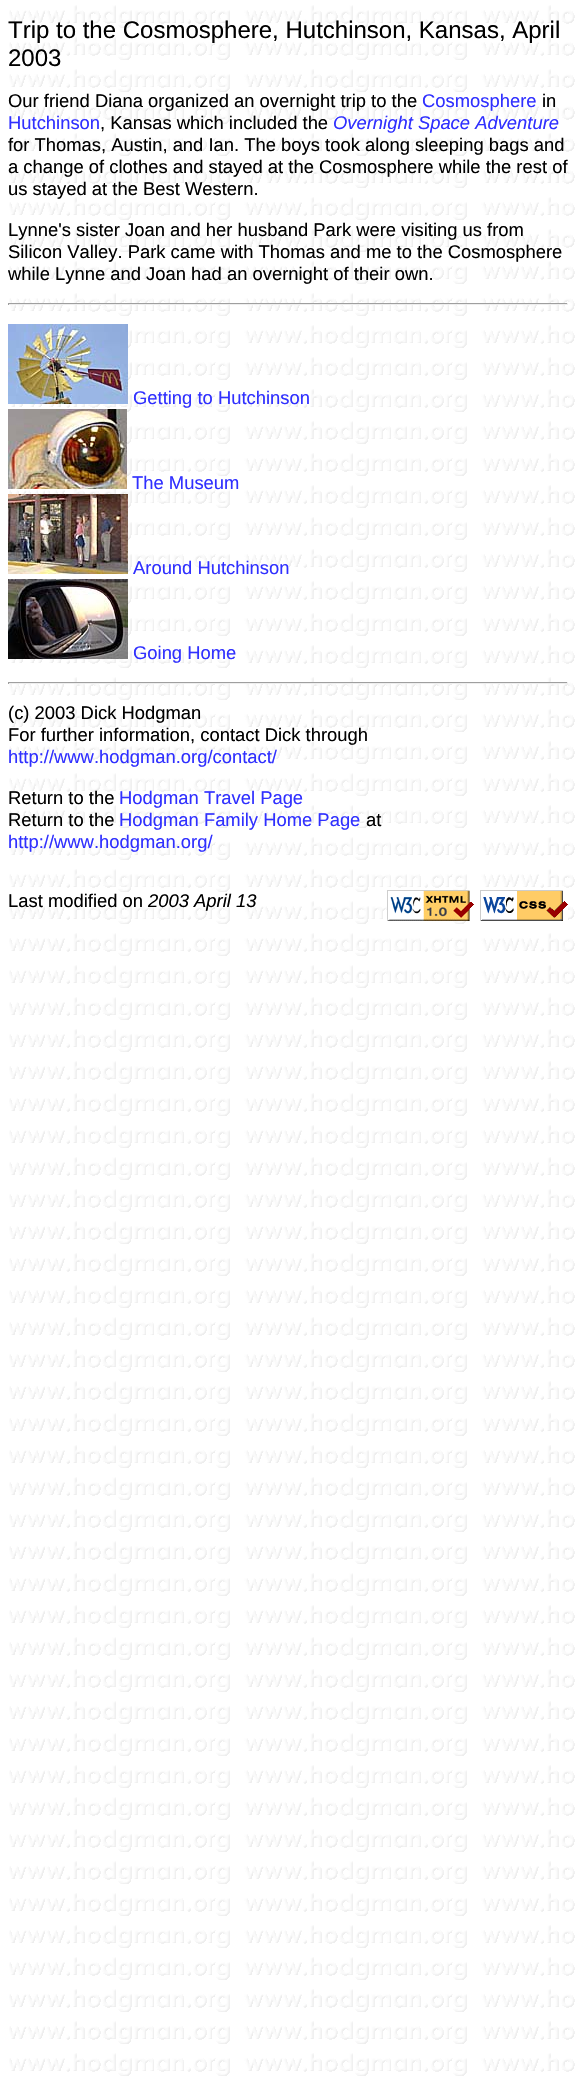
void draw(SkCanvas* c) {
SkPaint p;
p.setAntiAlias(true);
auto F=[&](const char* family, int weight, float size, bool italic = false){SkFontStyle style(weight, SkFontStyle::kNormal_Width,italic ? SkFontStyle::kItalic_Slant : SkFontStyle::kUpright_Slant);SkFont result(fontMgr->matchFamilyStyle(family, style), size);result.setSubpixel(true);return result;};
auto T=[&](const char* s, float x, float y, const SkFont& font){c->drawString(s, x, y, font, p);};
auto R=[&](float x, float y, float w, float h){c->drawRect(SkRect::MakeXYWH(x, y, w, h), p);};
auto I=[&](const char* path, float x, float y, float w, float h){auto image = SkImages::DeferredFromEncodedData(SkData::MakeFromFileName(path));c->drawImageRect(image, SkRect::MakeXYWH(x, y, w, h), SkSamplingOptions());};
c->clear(0xffffffff);
I("1.png",9,5,566,2071);
auto f1 = F("Liberation Sans",400,24);
p.setColor(0xff000000);
T("Trip to the Cosmosphere, Hutchinson, Kansas, April",8,38,f1);
T("2003",8,66,f1);
auto f2 = F("Liberation Sans",400,18.4);
T("Our friend Diana organized an overnight trip to the",8,107,f2);
p.setColor(0xff3030ff);
T("Cosmosphere",422,107,f2);
p.setColor(0xff000000);
T("in",542,107,f2);
p.setColor(0xff3030ff);
T("Hutchinson",8,129,f2);
p.setColor(0xff000000);
T(", Kansas which included the",100,129,f2);
auto f3 = F("Liberation Sans",400,18.4,true);
p.setColor(0xff3030ff);
T("Overnight Space Adventure",333,129,f3);
p.setColor(0xff000000);
T("for Thomas, Austin, and Ian. The boys took along sleeping bags and",8,151,f2);
T("a change of clothes and stayed at the Cosmosphere while the rest of",8,173,f2);
T("us stayed at the Best Western.",8,195,f2);
T("Lynne's sister Joan and her husband Park were visiting us from",8,236,f2);
T("Silicon Valley. Park came with Thomas and me to the Cosmosphere",8,258,f2);
T("while Lynne and Joan had an overnight of their own.",8,280,f2);
p.setColor(0xff9f9f9f);
R(8,303,560,1);
p.setColor(0xffeeeeee);
R(567,303,1,2);
R(8,304,560,1);
p.setColor(0xff9f9f9f);
R(8,303,1,2);
I("2.png",8,324,120,80);
p.setColor(0xff3030ff);
T("Getting to Hutchinson",133,404,f2);
I("3.png",8,409,119,80);
T("The Museum",132,489,f2);
I("4.png",8,494,120,80);
T("Around Hutchinson",133,574,f2);
I("5.png",8,579,120,80);
T("Going Home",133,659,f2);
p.setColor(0xff9f9f9f);
R(8,682,560,1);
p.setColor(0xffeeeeee);
R(567,682,1,2);
R(8,683,560,1);
p.setColor(0xff9f9f9f);
R(8,682,1,2);
p.setColor(0xff000000);
T("(c) 2003 Dick Hodgman",8,719,f2);
T("For further information, contact Dick through",8,741,f2);
p.setColor(0xff3030ff);
T("http://www.hodgman.org/contact/",8,763,f2);
p.setColor(0xff000000);
T("Return to the",8,804,f2);
p.setColor(0xff3030ff);
T("Hodgman Travel Page",119,804,f2);
p.setColor(0xff000000);
T("Return to the",8,826,f2);
p.setColor(0xff3030ff);
T("Hodgman Family Home Page",119,826,f2);
p.setColor(0xff000000);
T("at",366,826,f2);
p.setColor(0xff3030ff);
T("http://www.hodgman.org/",8,848,f2);
p.setColor(0xff000000);
T("Last modified on",8,907,f2);
T("2003 April 13",148,907,f3);
I("6.png",387,890,87,31);
I("7.png",480,890,88,31);
}
